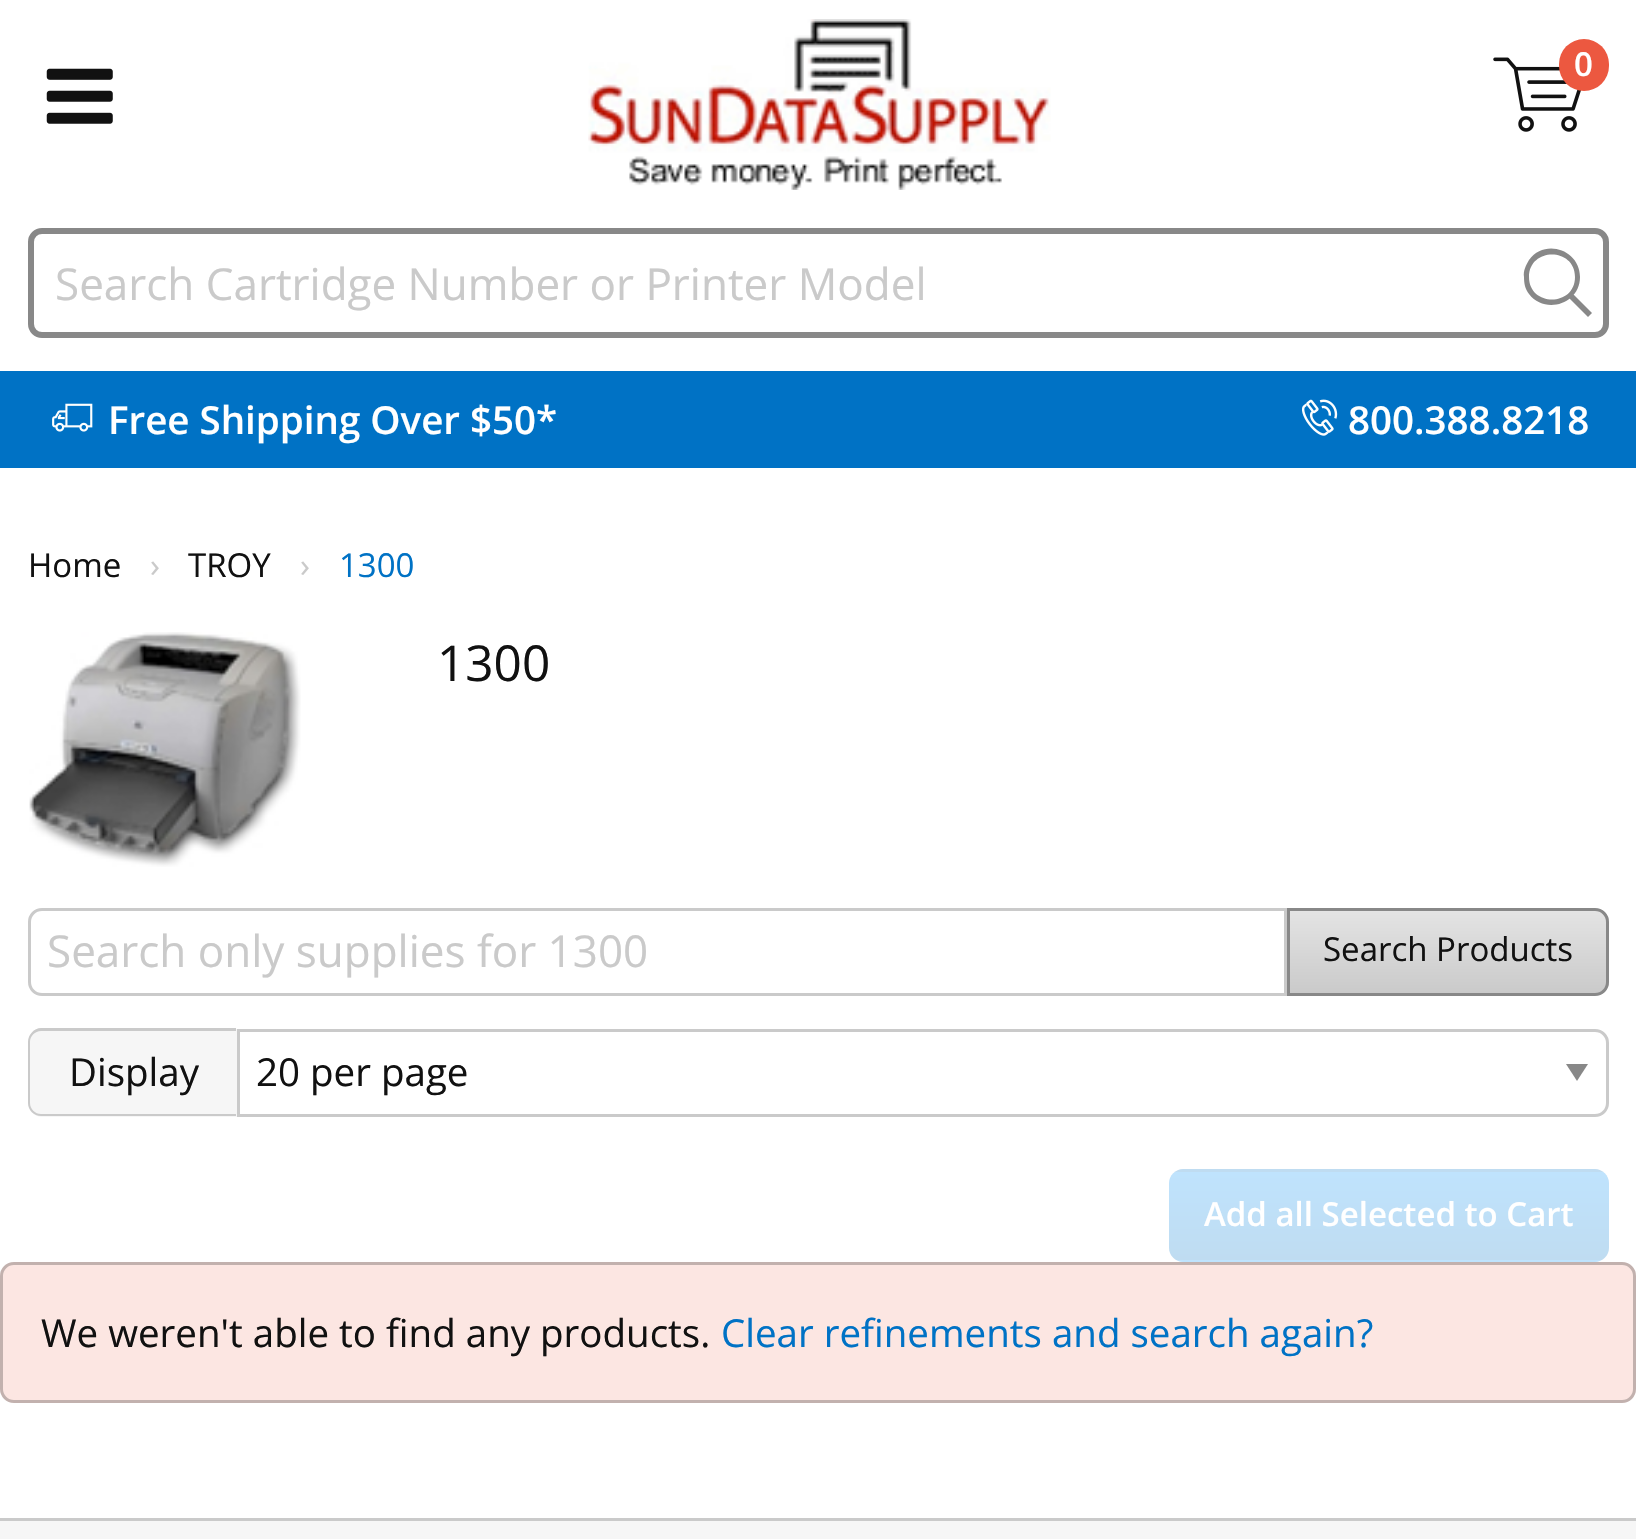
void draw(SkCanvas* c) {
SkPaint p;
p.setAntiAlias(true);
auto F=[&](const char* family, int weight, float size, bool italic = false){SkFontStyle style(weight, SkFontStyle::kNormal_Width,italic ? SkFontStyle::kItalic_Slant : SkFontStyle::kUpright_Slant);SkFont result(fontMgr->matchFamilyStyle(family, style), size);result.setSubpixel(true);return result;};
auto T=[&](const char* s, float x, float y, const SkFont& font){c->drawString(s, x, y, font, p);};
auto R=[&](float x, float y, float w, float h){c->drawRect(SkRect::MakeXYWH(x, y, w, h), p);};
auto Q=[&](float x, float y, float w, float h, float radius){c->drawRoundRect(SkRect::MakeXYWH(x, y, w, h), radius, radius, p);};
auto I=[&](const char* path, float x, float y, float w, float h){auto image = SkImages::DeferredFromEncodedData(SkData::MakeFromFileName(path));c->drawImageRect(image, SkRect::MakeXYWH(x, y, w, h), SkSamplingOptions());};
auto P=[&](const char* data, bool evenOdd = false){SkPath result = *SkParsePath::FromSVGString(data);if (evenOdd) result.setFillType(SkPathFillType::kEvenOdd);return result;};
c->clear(0xffffffff);
I("1.png",588,19,463,171);
I("2.png",1493,57,88,75);
p.setColor(0xffec5840);
Q(1559,39,50,52,25);
auto f1 = F("Open Sans",600,33);
p.setColor(0xffffffff);
T("0",1574,76,f1);
I("3.png",46,68,67,56);
p.setStroke(true);
p.setStrokeWidth(6);
p.setColor(0xff888888);
c->drawRoundRect(SkRect::MakeXYWH(31,231,1575,104),11,11,p);
auto f2 = F("Open Sans",400,44);
p.setStroke(false);
p.setColor(0xffcacaca);
T("Search Cartridge Number or Printer Model",55,300,f2);
p.setColor(0xff888888);
c->drawPath(P("M1575 277c0-30-46-30-46 0c0 30 46 30 46 0zm5 0c0 27-35 38-51 17c-4-5-5-11-5-17c-1-6 2-12 5-17c16-22 51-10 51 17zm-11 21l4-4l19 19l-4 4z"),p);
p.setColor(0xff0072c5);
R(0,371,1636,97);
I("4.png",52,403,41,29);
auto f3 = F("Open Sans",600,38.5);
p.setColor(0xffffffff);
T("Free Shipping Over $50*",108,434,f3);
I("5.png",1302,399,36,37);
T("800.388.8218",1348,434,f3);
auto f4 = F("Open Sans",400,33);
p.setColor(0xff111111);
T("Home",28,577,f4);
p.setColor(0xffcacaca);
T("›",150,577,f4);
p.setColor(0xff111111);
T("TROY",188,577,f4);
p.setColor(0xffcacaca);
T("›",300,577,f4);
p.setColor(0xff0072c5);
T("1300",339,577,f4);
I("6.png",29,632,272,235);
auto f5 = F("Open Sans",400,49.5);
p.setColor(0xff111111);
T("1300",437,681,f5);
p.setStroke(true);
p.setStrokeWidth(3);
p.setColor(0xffcacaca);
c->drawPath(P("M42 909.5h1243.5v85h-1243.5c-7 0-12.5-5.5-12.5-12.5v-60c0-7 5.5-12.5 12.5-12.5z"),p);
p.setStroke(false);
T("Search only supplies for 1300",47,967,f2);
c->save();
c->clipPath(P("M1287 908h308c7.5 0 14 6.5 14 14v60c0 7.5-6.5 14-14 14h-308z"),true);
{
const SkColor colors[] = {0xffe4e4e4,0xffcacaca};
const float stops[] = {0,1};
const SkPoint ends[] = {{1448,910}, {1448,993}};
p.setShader(SkGradientShader::MakeLinear(ends, colors, stops, 2, SkTileMode::kClamp));
p.setAlpha(255);
}
R(1290,910,319,83);
c->restore();
p.setStroke(true);
p.setShader(nullptr);
p.setColor(0xff888888);
c->drawPath(P("M1288.5 909.5h306.5c7 0 12.5 5.5 12.5 12.5v60c0 7-5.5 12.5-12.5 12.5h-306.5z"),p);
p.setStroke(false);
p.setColor(0xff111111);
T("Search Products",1323,961,f4);
p.setColor(0xfff6f6f6);
c->drawPath(P("M42 1029h195v88h-195c-7.5 0-14-6.5-14-14v-60c0-7.5 6.5-14 14-14z"),p);
p.setColor(0xffcacaca);
c->drawPath(P("M41 1028h195v88h-195c-7 0-13-6-13-13v-61c0-7 6-14 13-14zm0 3h195v83h-195c-6 0-11-5-11-11v-61c0-6 5-11 11-11z",true),p);
auto f6 = F("Open Sans",400,38.5);
p.setColor(0xff111111);
T("Display",69,1086,f6);
p.setColor(0xff888888);
c->drawPath(P("M1566 1064h22l-11 17z"),p);
p.setStroke(true);
p.setColor(0xffcacaca);
c->drawPath(P("M238.5 1030.5h1356.5c7 0 12.5 5.5 12.5 12.5v60c0 7-5.5 12.5-12.5 12.5h-1356.5z"),p);
p.setStroke(false);
p.setColor(0xff111111);
T("20 per page",256,1086,f6);
c->save();
c->clipPath(P("M1183 1169h412c7.5 0 14 6.5 14 14v65c0 7.5-6.5 14-14 14h-412c-7.5 0-14-6.5-14-14v-65c0-7.5 6.5-14 14-14z"),true);
{
const SkColor colors[] = {0xffbfe3fd,0xffbfdcf1};
const float stops[] = {0,1};
const SkPoint ends[] = {{1389,1084}, {1389,1172}};
p.setShader(SkGradientShader::MakeLinear(ends, colors, stops, 2, SkTileMode::kClamp));
p.setAlpha(255);
}
R(1169,1169,440,3);
{
const SkColor colors[] = {0xffbfe3fd,0xffbfdcf1};
const float stops[] = {0,1};
const SkPoint ends[] = {{1389,1172}, {1389,1260}};
p.setShader(SkGradientShader::MakeLinear(ends, colors, stops, 2, SkTileMode::kClamp));
p.setAlpha(255);
}
R(1169,1172,440,88);
{
const SkColor colors[] = {0xffbfe3fd,0xffbfdcf1};
const float stops[] = {0,1};
const SkPoint ends[] = {{1389,1260}, {1389,1348}};
p.setShader(SkGradientShader::MakeLinear(ends, colors, stops, 2, SkTileMode::kClamp));
p.setAlpha(255);
}
R(1169,1260,440,2);
c->restore();
p.setShader(nullptr);
p.setColor(0xffffffff);
T("Add all Selected to Cart",1204,1226,f1);
p.setColor(0xfffce6e2);
Q(0,1262,1636,141,14);
p.setStroke(true);
p.setColor(0x40121212);
c->drawRoundRect(SkRect::MakeXYWH(1.5,1263.5,1633,138),12.5,12.5,p);
p.setStroke(false);
p.setColor(0xff111111);
T("We weren't able to find any products.",41,1347,f6);
p.setColor(0xff0072c5);
T("Clear refinements and search again?",721,1347,f6);
p.setColor(0xfff6f6f6);
R(0,1521,1636,18);
p.setColor(0xffcacaca);
R(0,1518,1636,3);
}
